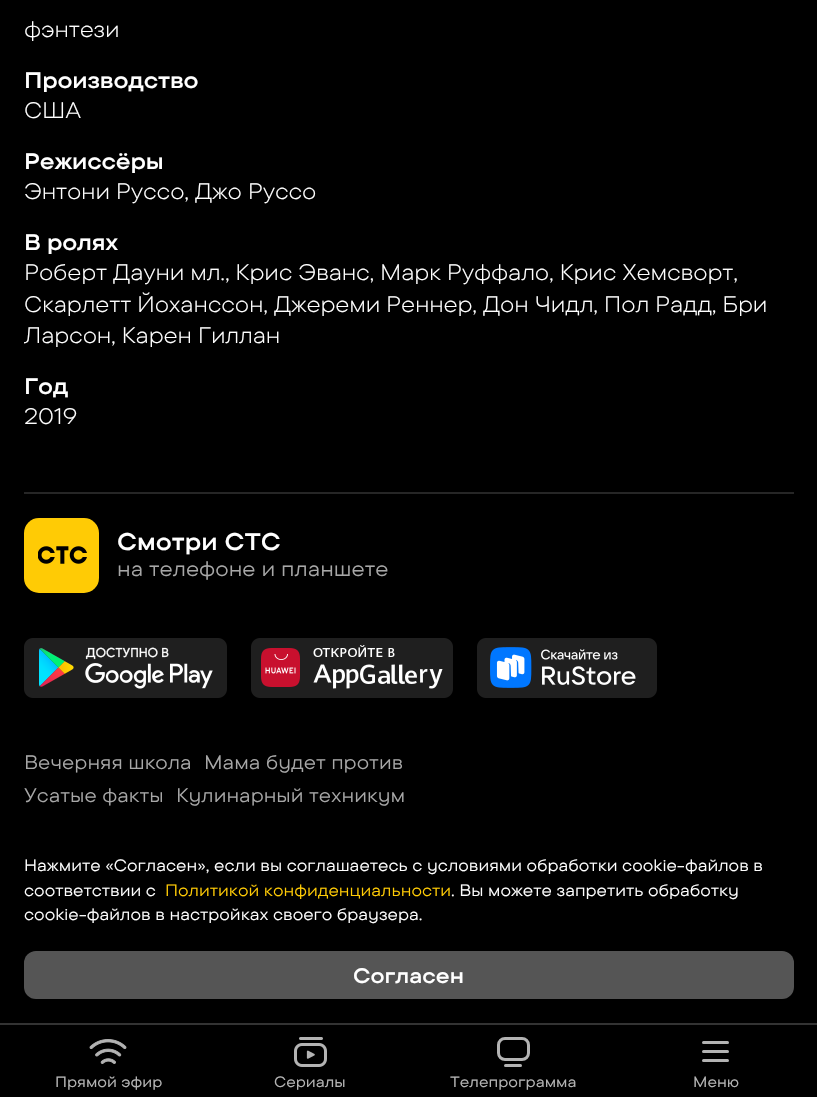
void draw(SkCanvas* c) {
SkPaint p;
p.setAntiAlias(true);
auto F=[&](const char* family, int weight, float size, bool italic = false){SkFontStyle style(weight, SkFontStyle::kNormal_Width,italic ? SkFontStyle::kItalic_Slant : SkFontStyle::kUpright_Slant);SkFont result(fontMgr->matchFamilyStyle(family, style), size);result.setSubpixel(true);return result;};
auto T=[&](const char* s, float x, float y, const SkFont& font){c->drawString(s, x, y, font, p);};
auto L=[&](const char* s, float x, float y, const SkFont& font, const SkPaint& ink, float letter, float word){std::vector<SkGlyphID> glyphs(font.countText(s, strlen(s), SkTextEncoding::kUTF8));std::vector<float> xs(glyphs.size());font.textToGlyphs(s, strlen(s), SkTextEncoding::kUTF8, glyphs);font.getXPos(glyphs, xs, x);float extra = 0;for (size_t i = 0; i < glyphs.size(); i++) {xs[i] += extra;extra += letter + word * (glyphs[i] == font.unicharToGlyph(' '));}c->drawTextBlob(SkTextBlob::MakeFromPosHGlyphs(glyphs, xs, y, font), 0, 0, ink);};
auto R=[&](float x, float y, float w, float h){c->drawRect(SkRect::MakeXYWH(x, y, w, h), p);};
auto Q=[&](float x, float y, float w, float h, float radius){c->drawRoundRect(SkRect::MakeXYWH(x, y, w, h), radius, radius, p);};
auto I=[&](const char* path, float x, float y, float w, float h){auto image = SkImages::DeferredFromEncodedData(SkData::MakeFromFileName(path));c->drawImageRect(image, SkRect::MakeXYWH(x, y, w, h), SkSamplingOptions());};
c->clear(0xff000000);
auto f1 = F("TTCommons",300,22.5);
p.setColor(0xffffffff);
L("фэнтези",24,37,f1,p,-.2,0);
auto f2 = F("TTCommons",600,22.5);
L("Производство",24,88,f2,p,-.2,0);
L("США",24,118,f1,p,-.2,0);
L("Режиссёры",24,169,f2,p,-.2,0);
L("Энтони Руссо, Джо Руссо",24,199,f1,p,-.2,0);
L("В ролях",24,250,f2,p,-.2,0);
L("Роберт Дауни мл., Крис Эванс, Марк Руффало, Крис Хемсворт,",24,280,f1,p,-.2,0);
L("Скарлетт Йоханссон, Джереми Реннер, Дон Чидл, Пол Радд, Бри",24,312,f1,p,-.2,0);
L("Ларсон, Карен Гиллан",24,343,f1,p,-.2,0);
L("Год",24,394,f2,p,-.2,0);
L("2019",24,424,f1,p,-.2,0);
p.setColor(0xff262626);
R(24,492,770,2);
p.setColor(0xffffcb05);
Q(24,518,75,75,15);
I("1.png",38,546,49,18);
auto f3 = F("TTCommons",600,24);
p.setColor(0xffffffff);
T("Смотри СТС",117,550,f3);
auto f4 = F("TTCommons",400,21);
p.setColor(0xffa7a7a7);
T("на телефоне и планшете",117,576,f4);
I("2.png",24,638,203,60);
I("3.png",251,638,202,60);
I("4.png",477,638,180,60);
auto f5 = F("TTCommons",400,19.5);
T("Вечерняя школа",24,769,f5);
T("Мама будет против",204,769,f5);
T("Усатые факты",24,802,f5);
T("Кулинарный техникум",176,802,f5);
auto f6 = F("TTCommons",400,16.5);
p.setColor(0xffffffff);
T("Нажмите «Согласен», если вы соглашаетесь с условиями обработки cookie-файлов в",24,871,f6);
T("соответствии с",24,896,f6);
p.setColor(0xffffcb05);
T("Политикой конфиденциальности",165,896,f6);
p.setColor(0xffffffff);
T(". Вы можете запретить обработку",451,896,f6);
T("cookie-файлов в настройках своего браузера.",24,920,f6);
p.setColor(0xff555555);
Q(24,951,770,48,12);
auto f7 = F("TTCommons",600,21);
p.setColor(0xffffffff);
T("Согласен",353,983,f7);
p.setColor(0xff333333);
R(0,1023,817,2);
I("5.png",89,1039,38,25);
auto f8 = F("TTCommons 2",400,15);
p.setColor(0xffb3b3b3);
T("Прямой эфир",55,1087,f8);
I("6.png",294,1037,33,30);
T("Сериалы",274,1087,f8);
p.setStroke(true);
p.setStrokeWidth(3);
c->drawRoundRect(SkRect::MakeXYWH(498.5,1038.5,30,21),6.5,6.5,p);
p.setStroke(false);
Q(504,1064,18,3,1.5);
T("Телепрограмма",450,1087,f8);
Q(702,1041,27,3,1.5);
Q(702,1050,27,3,1.5);
Q(702,1059,27,3,1.5);
T("Меню",693,1087,f8);
}
